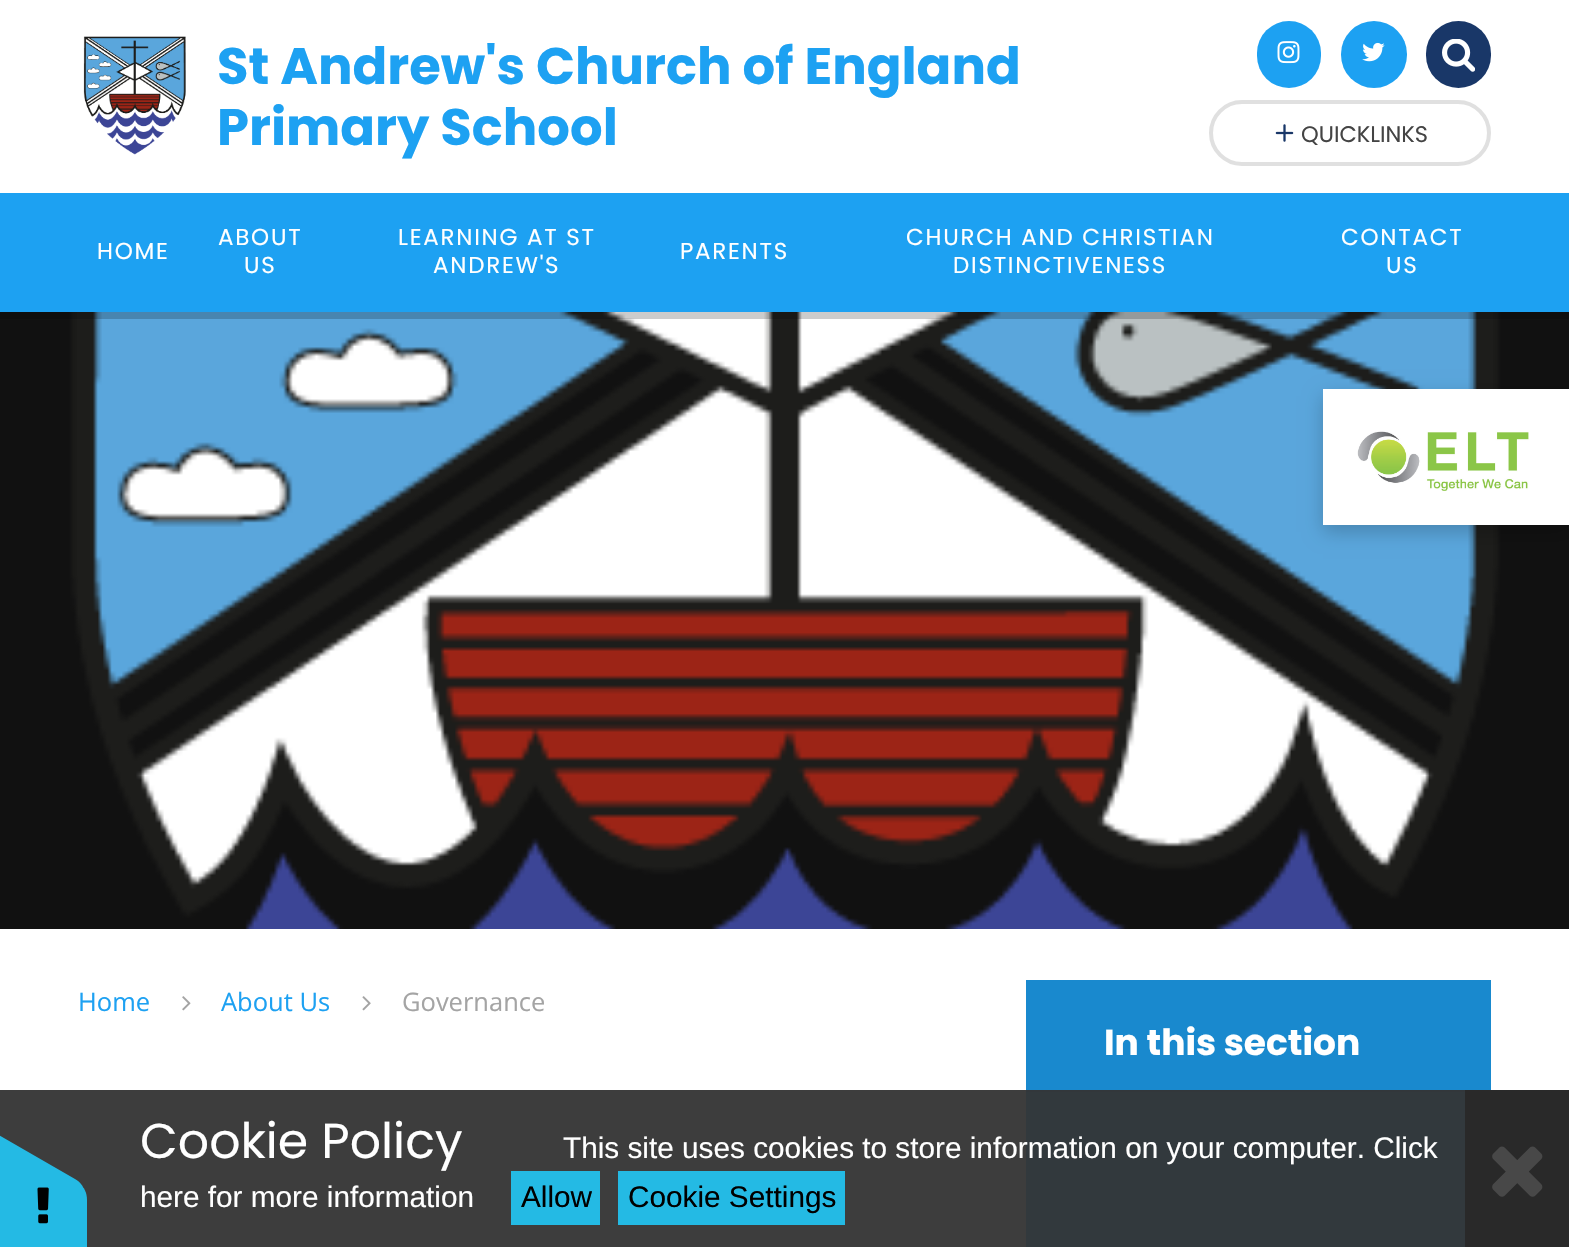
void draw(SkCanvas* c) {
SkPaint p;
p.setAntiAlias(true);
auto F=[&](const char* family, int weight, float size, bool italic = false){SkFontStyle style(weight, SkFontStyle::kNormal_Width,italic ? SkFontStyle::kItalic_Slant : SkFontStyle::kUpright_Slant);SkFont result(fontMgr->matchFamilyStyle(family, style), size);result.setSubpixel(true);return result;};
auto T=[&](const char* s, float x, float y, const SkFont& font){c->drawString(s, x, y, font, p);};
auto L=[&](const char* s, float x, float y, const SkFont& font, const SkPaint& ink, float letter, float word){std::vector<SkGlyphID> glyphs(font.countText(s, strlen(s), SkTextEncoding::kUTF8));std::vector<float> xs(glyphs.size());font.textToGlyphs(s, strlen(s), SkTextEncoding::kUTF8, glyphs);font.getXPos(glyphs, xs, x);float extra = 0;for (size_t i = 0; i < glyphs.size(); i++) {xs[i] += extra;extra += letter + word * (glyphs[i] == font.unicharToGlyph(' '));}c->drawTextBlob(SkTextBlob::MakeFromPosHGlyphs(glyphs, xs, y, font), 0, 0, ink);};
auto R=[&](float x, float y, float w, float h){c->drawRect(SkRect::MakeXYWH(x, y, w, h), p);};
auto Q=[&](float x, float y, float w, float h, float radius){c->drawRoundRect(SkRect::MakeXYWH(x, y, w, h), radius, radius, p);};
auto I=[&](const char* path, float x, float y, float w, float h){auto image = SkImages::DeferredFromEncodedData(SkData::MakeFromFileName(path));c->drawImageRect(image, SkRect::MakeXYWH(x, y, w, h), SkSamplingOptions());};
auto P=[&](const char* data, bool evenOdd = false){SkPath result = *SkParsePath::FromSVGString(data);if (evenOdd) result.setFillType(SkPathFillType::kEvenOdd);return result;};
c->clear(0xff111111);
p.setColor(0xffffffff);
R(0,0,1569,193);
I("1.png",83,36,103,119);
auto f1 = F("Poppins",700,51.25);
p.setColor(0xff1da1f2);
T("St Andrew's Church of England",217,84,f1);
T("Primary School",217,145,f1);
I("7.png",69,312,1432,617);
p.setColor(0x33000000);
R(0,312,1569,7);
p.setMaskFilter(SkMaskFilter::MakeBlur(kNormal_SkBlurStyle, 9));
c->drawRect(SkRect::MakeXYWH(1323,396,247,136),p);
p.setMaskFilter(nullptr);
p.setColor(0xffffffff);
R(1323,389,246,136);
I("2.png",1357,431,172,60);
p.setColor(0xff1da1f2);
R(0,193,1569,119);
Q(1257,21,64,67,32);
I("3.png",1277,41,23,23);
Q(1341,21,66,67,33);
I("4.png",1362,42,23,20);
p.setColor(0xff193768);
Q(1426,21,65,67,32.5);
I("5.png",1442,39,33,33);
p.setStroke(true);
p.setStrokeWidth(4);
p.setColor(0xffe0e0e0);
c->drawRoundRect(SkRect::MakeXYWH(1211,102,278,62),31,31,p);
I("6.png",1275,124,19,18);
auto f2 = F("Poppins",400,22.5);
p.setStroke(false);
p.setColor(0xff444444);
T("QUICKLINKS",1301,142,f2);
auto f3 = F("Poppins",400,23);
p.setColor(0xffffffff);
L("HOME",97,259,f3,p,1.75,0);
L("ABOUT",218,245,f3,p,1.75,0);
L("US",244,273,f3,p,1.75,0);
L("LEARNING AT ST",398,245,f3,p,1.75,0);
L("ANDREW'S",433,273,f3,p,1.75,0);
L("PARENTS",680,259,f3,p,1.75,0);
L("CHURCH AND CHRISTIAN",906,245,f3,p,1.75,0);
L("DISTINCTIVENESS",953,273,f3,p,1.75,0);
L("CONTACT",1341,245,f3,p,1.75,0);
L("US",1386,273,f3,p,1.75,0);
R(0,929,1569,318);
auto f4 = F("Open Sans",400,25.5);
p.setColor(0xff1da1f2);
T("Home",78,1011,f4);
I("8.png",182,996,9,15);
T("About Us",221,1011,f4);
I("9.png",362,996,9,15);
p.setColor(0xffa4a4a4);
T("Governance",402,1011,f4);
p.setColor(0xff1da1f2);
R(1026,1092,439,155);
p.setColor(0xff1989ce);
R(1026,980,465,112);
auto f5 = F("Poppins",700,36);
p.setColor(0xffffffff);
T("In this section",1104,1055,f5);
p.setColor(0xf2333333);
R(0,1090,1465,157);
p.setColor(0xff24bae4);
c->drawPath(P("M87 1200v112c0 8-3 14-7 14h-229c-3 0-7-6-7-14v-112c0-7 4-14 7-14h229c4 0 7 7 7 14z"),p);
c->drawPath(P("M-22 1123l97 56c7 4 10 10 8 13l-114 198c-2 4-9 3-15-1l-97-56c-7-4-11-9-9-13l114-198c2-3 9-3 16 1z"),p);
I("10.png",37,1187,12,37);
auto f6 = F("Poppins",400,49);
p.setColor(0xffffffff);
T("Cookie Policy",140,1158,f6);
auto f7 = F("Liberation Sans",400,29.75);
T("This site uses cookies to store information on your computer. Click",563,1158,f7);
T("here for more information",140,1207,f7);
p.setColor(0xff24bae4);
R(511,1171,89,54);
p.setColor(0xff000000);
T("Allow",521,1207,f7);
p.setColor(0xff24bae4);
R(618,1171,227,54);
p.setColor(0xff000000);
T("Cookie Settings",628,1207,f7);
p.setColor(0xff292929);
R(1465,1090,104,157);
I("11.png",1492,1146,51,51);
}
